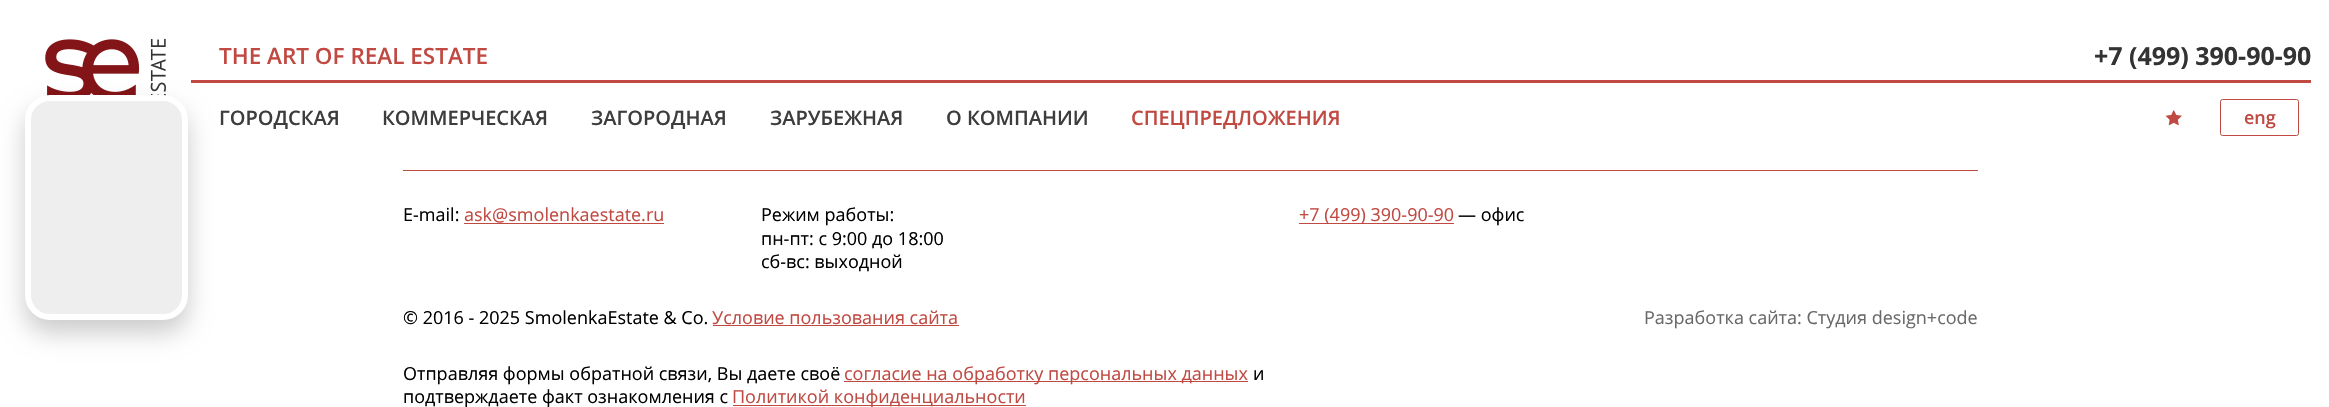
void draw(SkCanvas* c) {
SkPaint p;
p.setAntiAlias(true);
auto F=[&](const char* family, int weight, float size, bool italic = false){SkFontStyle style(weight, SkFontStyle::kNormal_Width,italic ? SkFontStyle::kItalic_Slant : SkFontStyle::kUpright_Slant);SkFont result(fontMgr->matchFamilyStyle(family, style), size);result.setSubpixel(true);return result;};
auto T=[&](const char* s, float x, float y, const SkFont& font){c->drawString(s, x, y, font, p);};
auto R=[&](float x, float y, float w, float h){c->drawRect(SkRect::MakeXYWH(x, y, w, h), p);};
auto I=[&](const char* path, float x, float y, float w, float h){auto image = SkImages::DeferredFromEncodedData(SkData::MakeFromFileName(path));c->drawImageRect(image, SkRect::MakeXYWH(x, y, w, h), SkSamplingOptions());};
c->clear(0xffffffff);
I("1.png",45,38,121,58);
p.setColor(0xffc04942);
R(191,80,2120,3);
p.setColor(0x33000000);
p.setMaskFilter(SkMaskFilter::MakeBlur(kNormal_SkBlurStyle, 12.5));
c->drawRoundRect(SkRect::MakeXYWH(25,108,163,225),25,25,p);
p.setMaskFilter(nullptr);
p.setColor(0xffeeeeee);
c->drawRoundRect(SkRect::MakeXYWH(28,98,157,219),22,22,p);
p.setStroke(true);
p.setStrokeWidth(6);
p.setColor(0xffffffff);
c->drawRoundRect(SkRect::MakeXYWH(28,98,157,219),22,22,p);
auto f1 = F("Open Sans",600,22.5);
p.setStroke(false);
p.setColor(0xffc04942);
T("THE ART OF REAL ESTATE",219,64,f1);
auto f2 = F("Open Sans",700,25);
p.setColor(0xff333333);
T("+7 (499) 390-90-90",2094,65,f2);
auto f3 = F("Open Sans",600,20);
p.setColor(0xff3d3d3d);
T("ГОРОДСКАЯ",219,125,f3);
T("КОММЕРЧЕСКАЯ",382,125,f3);
T("ЗАГОРОДНАЯ",591,125,f3);
T("ЗАРУБЕЖНАЯ",770,125,f3);
T("О КОМПАНИИ",946,125,f3);
p.setColor(0xffc04942);
T("СПЕЦПРЕДЛОЖЕНИЯ",1131,125,f3);
I("2.png",2165,110,17,16);
p.setStroke(true);
p.setStrokeWidth(1);
c->drawRoundRect(SkRect::MakeXYWH(2220.5,99.5,78,36),2,2,p);
auto f4 = F("Open Sans",600,18);
p.setStroke(false);
T("eng",2244,124,f4);
R(403,170,1575,1);
auto f5 = F("Open Sans",400,18);
p.setColor(0xff000000);
T("E-mail:",403,221,f5);
p.setColor(0xffc04942);
T("ask@smolenkaestate.ru",464,221,f5);
R(464,223,200,1);
p.setColor(0xff000000);
T("Режим работы:",761,221,f5);
T("пн-пт: с 9:00 до 18:00",761,245,f5);
T("сб-вс: выходной",761,268,f5);
p.setColor(0xffc04942);
R(1299,223,155,1);
T("+7 (499) 390-90-90",1299,221,f5);
p.setColor(0xff000000);
T("— офис",1458,221,f5);
T("© 2016 - 2025 SmolenkaEstate & Co.",403,324,f5);
p.setColor(0xffc04942);
T("Условие пользования сайта",712,324,f5);
R(713,325,246,1);
p.setColor(0xff696969);
T("Разработка сайта: Студия design+code",1644,324,f5);
p.setColor(0xff000000);
T("Отправляя формы обратной связи, Вы даете своё",403,380,f5);
p.setColor(0xffc04942);
R(844,381,404,1);
T("согласие на обработку персональных данных",844,380,f5);
p.setColor(0xff000000);
T("и",1253,380,f5);
T("подтверждаете факт ознакомления с",403,403,f5);
p.setColor(0xffc04942);
R(733,405,293,1);
T("Политикой конфиденциальности",732,403,f5);
}
